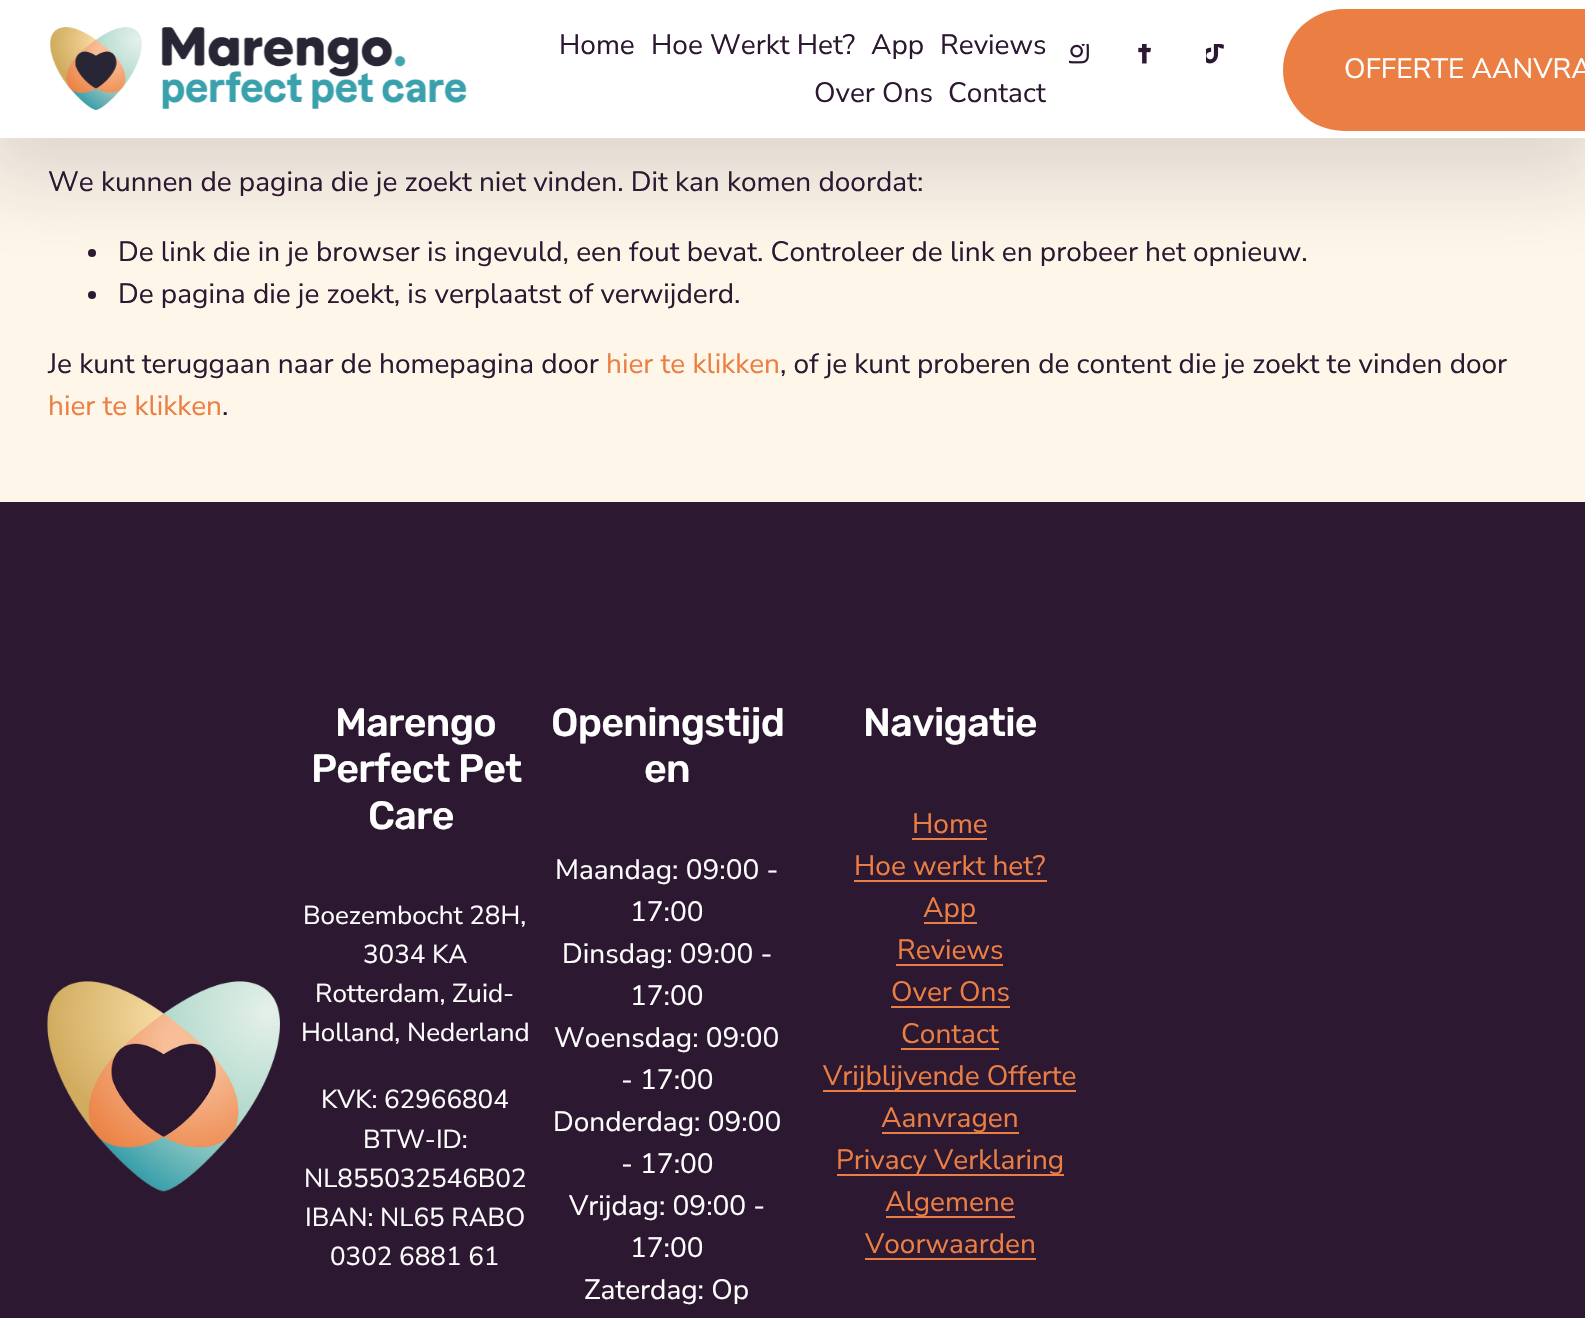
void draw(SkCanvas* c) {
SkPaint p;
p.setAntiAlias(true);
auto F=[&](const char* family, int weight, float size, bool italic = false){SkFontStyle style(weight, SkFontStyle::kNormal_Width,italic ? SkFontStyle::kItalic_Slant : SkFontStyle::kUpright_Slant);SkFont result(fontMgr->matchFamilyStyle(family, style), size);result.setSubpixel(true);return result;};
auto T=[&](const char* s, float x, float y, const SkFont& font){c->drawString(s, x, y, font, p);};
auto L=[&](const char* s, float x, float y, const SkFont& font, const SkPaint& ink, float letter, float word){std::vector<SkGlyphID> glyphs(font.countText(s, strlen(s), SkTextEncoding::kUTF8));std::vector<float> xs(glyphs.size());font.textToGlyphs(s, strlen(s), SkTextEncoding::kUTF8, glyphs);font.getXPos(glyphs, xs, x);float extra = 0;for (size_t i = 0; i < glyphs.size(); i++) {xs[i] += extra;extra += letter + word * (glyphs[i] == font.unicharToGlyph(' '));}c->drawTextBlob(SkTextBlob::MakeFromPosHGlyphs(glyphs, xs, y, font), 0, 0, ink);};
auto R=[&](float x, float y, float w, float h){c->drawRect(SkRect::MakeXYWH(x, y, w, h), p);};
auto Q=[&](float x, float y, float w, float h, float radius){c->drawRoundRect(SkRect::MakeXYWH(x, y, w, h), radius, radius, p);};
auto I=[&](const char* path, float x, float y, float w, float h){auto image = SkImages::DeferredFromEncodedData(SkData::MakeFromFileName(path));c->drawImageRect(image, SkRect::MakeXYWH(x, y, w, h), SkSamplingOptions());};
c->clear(0xfffdf6e9);
p.setColor(0xff2d1831);
c->drawCircle(92,253,4,p);
c->drawCircle(92,295,4,p);
p.setColor(0x262d1831);
p.setMaskFilter(SkMaskFilter::MakeBlur(kNormal_SkBlurStyle, 42));
c->drawRect(SkRect::MakeXYWH(-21,0,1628,180),p);
p.setMaskFilter(nullptr);
p.setColor(0xffffffff);
R(0,0,1585,138);
I("1.png",49,27,418,83);
auto f1 = F("Nunito Sans",400,28);
p.setColor(0xff2d1831);
T("Home",559,54,f1);
T("Hoe Werkt Het?",651,54,f1);
T("App",871,54,f1);
T("Reviews",940,54,f1);
T("Over Ons",814,102,f1);
T("Contact",948,102,f1);
I("2.png",1069,44,20,20);
I("3.png",1138,44,13,20);
I("4.png",1206,44,18,20);
p.setColor(0xffeb7f43);
Q(1283,9,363,122,61);
p.setColor(0xffffffff);
T("OFFERTE AANVRA",1344,78,f1);
p.setColor(0xff2d1831);
T("We kunnen de pagina die je zoekt niet vinden. Dit kan komen doordat:",48,191,f1);
T("De link die in je browser is ingevuld, een fout bevat. Controleer de link en probeer het opnieuw.",118,261,f1);
T("De pagina die je zoekt, is verplaatst of verwijderd.",118,303,f1);
T("Je kunt teruggaan naar de homepagina door",48,373,f1);
p.setColor(0xffeb7f43);
T("hier te klikken",606,373,f1);
p.setColor(0xff2d1831);
T(", of je kunt proberen de content die je zoekt te vinden door",780,373,f1);
p.setColor(0xffeb7f43);
T("hier te klikken",48,415,f1);
p.setColor(0xff2d1831);
T(".",222,415,f1);
R(0,502,1585,816);
I("5.png",47,981,233,211);
auto f2 = F("Rubik",500,39.5);
p.setColor(0xffffffff);
L("Marengo",335,736,f2,p,-.75,0);
L("Perfect Pet",311,782,f2,p,-.75,0);
L("Care",368,829,f2,p,-.75,0);
auto f3 = F("Nunito Sans",400,26);
T("Boezembocht 28H,",303,924,f3);
T("3034 KA",363,963,f3);
T("Rotterdam, Zuid-",315,1002,f3);
T("Holland, Nederland",301,1041,f3);
T("KVK: 62966804",321,1108,f3);
T("BTW-ID:",363,1148,f3);
T("NL855032546B02",304,1187,f3);
T("IBAN: NL65 RABO",305,1226,f3);
T("0302 6881 61",330,1265,f3);
L("Openingstijd",551,736,f2,p,-.75,0);
L("en",644,782,f2,p,-.75,0);
T("Maandag: 09:00 -",555,879,f1);
T("17:00",630,921,f1);
T("Dinsdag: 09:00 -",562,963,f1);
T("17:00",630,1005,f1);
T("Woensdag: 09:00",554,1047,f1);
T("- 17:00",621,1089,f1);
T("Donderdag: 09:00",553,1131,f1);
T("- 17:00",621,1173,f1);
T("Vrijdag: 09:00 -",569,1215,f1);
T("17:00",630,1257,f1);
T("Zaterdag: Op",584,1299,f1);
L("Navigatie",863,736,f2,p,-.75,0);
p.setColor(0xffeb7f43);
T("Home",912,833,f1);
R(912,838,75,2);
T("Hoe werkt het?",854,875,f1);
R(854,880,193,2);
R(924,922,53,2);
T("App",923,917,f1);
T("Reviews",897,959,f1);
R(896,964,107,2);
T("Over Ons",891,1001,f1);
R(891,1006,119,2);
T("Contact",901,1043,f1);
R(901,1048,98,2);
R(823,1090,253,2);
T("Vrijblijvende Offerte",823,1085,f1);
R(882,1132,137,2);
T("Aanvragen",881,1127,f1);
R(837,1174,227,2);
T("Privacy Verklaring",836,1169,f1);
R(886,1216,129,2);
T("Algemene",885,1211,f1);
T("Voorwaarden",865,1253,f1);
R(865,1258,171,2);
}
